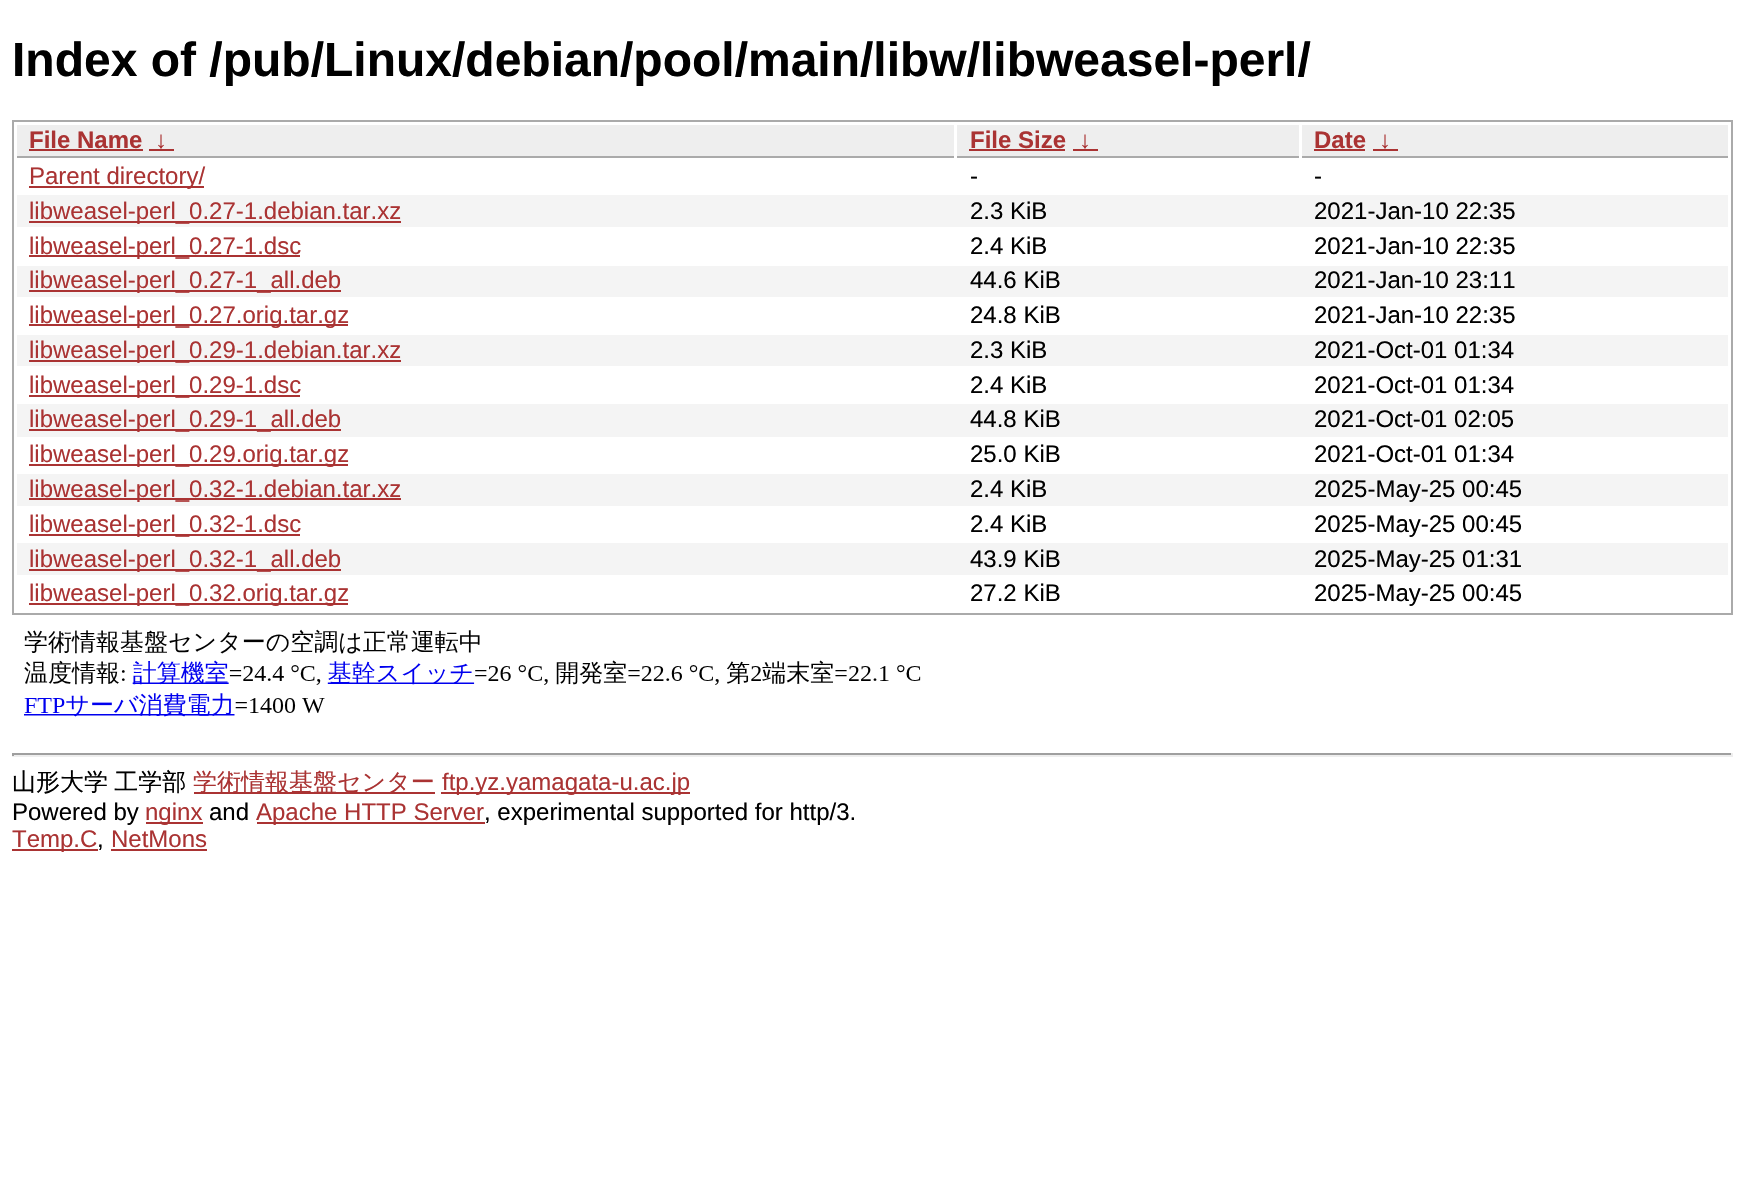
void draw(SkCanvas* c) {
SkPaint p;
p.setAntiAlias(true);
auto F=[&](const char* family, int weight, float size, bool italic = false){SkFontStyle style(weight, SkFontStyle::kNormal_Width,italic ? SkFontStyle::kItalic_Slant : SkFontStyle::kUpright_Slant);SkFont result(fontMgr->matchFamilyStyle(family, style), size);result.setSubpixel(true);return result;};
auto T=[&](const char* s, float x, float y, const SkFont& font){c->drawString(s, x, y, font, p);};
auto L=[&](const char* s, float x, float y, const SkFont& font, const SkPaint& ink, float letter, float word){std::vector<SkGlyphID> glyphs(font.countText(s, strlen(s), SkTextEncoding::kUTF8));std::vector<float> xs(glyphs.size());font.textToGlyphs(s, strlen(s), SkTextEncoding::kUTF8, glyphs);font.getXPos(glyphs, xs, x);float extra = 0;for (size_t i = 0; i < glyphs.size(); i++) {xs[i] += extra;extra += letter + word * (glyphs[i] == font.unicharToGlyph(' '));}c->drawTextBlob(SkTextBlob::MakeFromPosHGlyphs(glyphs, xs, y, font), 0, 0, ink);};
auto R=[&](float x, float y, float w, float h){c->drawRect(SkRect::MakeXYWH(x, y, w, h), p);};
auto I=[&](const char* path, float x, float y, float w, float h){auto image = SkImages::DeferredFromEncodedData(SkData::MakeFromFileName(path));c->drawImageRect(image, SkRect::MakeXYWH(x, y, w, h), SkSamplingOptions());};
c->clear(0xffffffff);
auto f1 = F("Liberation Sans",700,48);
p.setColor(0xff000000);
T("Index of /pub/Linux/debian/pool/main/libw/libweasel-perl/",12,76,f1);
p.setStroke(true);
p.setStrokeWidth(2);
p.setColor(0xffaaaaaa);
c->drawRect(SkRect::MakeXYWH(13,121,1719,493),p);
p.setStroke(false);
p.setColor(0xffeeeeee);
R(17,125,937,31);
p.setColor(0xffaaaaaa);
R(17,156,937,2);
auto f2 = F("Liberation Sans",700,24);
p.setColor(0xffaa3333);
T("File Name",29,148,f2);
R(29,149,114,2);
T("↓",155,148,f2);
R(149,149,25,2);
p.setColor(0xffeeeeee);
R(957,125,342,31);
p.setColor(0xffaaaaaa);
R(957,156,342,2);
p.setColor(0xffaa3333);
T("File Size",970,148,f2);
R(969,149,96,2);
T("↓",1079,148,f2);
R(1073,149,25,2);
p.setColor(0xffeeeeee);
R(1302,125,426,31);
p.setColor(0xffaaaaaa);
R(1302,156,426,2);
p.setColor(0xffaa3333);
T("Date",1314,148,f2);
R(1314,149,51,2);
T("↓",1379,148,f2);
R(1373,149,25,2);
R(29,186,175,2);
auto f3 = F("Liberation Sans",400,24);
T("Parent directory/",29,184,f3);
p.setColor(0xff000000);
T("-",970,184,f3);
T("-",1314,184,f3);
p.setColor(0xfff4f4f4);
R(17,195,1711,32);
p.setColor(0xffaa3333);
R(29,221,372,2);
T("libweasel-perl_0.27-1.debian.tar.xz",29,219,f3);
p.setColor(0xff000000);
T("2.3 KiB",970,219,f3);
T("2021-Jan-10 22:35",1314,219,f3);
p.setColor(0xffaa3333);
R(29,255,271,2);
T("libweasel-perl_0.27-1.dsc",29,254,f3);
p.setColor(0xff000000);
T("2.4 KiB",970,254,f3);
T("2021-Jan-10 22:35",1314,254,f3);
p.setColor(0xfff4f4f4);
R(17,266,1711,31);
p.setColor(0xffaa3333);
R(29,290,312,2);
T("libweasel-perl_0.27-1_all.deb",29,288,f3);
p.setColor(0xff000000);
T("44.6 KiB",970,288,f3);
T("2021-Jan-10 23:11",1314,288,f3);
p.setColor(0xffaa3333);
R(29,324,319,2);
T("libweasel-perl_0.27.orig.tar.gz",29,323,f3);
p.setColor(0xff000000);
T("24.8 KiB",970,323,f3);
T("2021-Jan-10 22:35",1314,323,f3);
p.setColor(0xfff4f4f4);
R(17,335,1711,31);
p.setColor(0xffaa3333);
R(29,360,372,2);
T("libweasel-perl_0.29-1.debian.tar.xz",29,358,f3);
p.setColor(0xff000000);
T("2.3 KiB",970,358,f3);
T("2021-Oct-01 01:34",1314,358,f3);
p.setColor(0xffaa3333);
R(29,395,271,2);
T("libweasel-perl_0.29-1.dsc",29,393,f3);
p.setColor(0xff000000);
T("2.4 KiB",970,393,f3);
T("2021-Oct-01 01:34",1314,393,f3);
p.setColor(0xfff4f4f4);
R(17,404,1711,33);
p.setColor(0xffaa3333);
R(29,429,312,2);
T("libweasel-perl_0.29-1_all.deb",29,427,f3);
p.setColor(0xff000000);
T("44.8 KiB",970,427,f3);
T("2021-Oct-01 02:05",1314,427,f3);
p.setColor(0xffaa3333);
R(29,464,319,2);
T("libweasel-perl_0.29.orig.tar.gz",29,462,f3);
p.setColor(0xff000000);
T("25.0 KiB",970,462,f3);
T("2021-Oct-01 01:34",1314,462,f3);
p.setColor(0xfff4f4f4);
R(17,474,1711,32);
p.setColor(0xffaa3333);
R(29,498,372,2);
T("libweasel-perl_0.32-1.debian.tar.xz",29,497,f3);
p.setColor(0xff000000);
T("2.4 KiB",970,497,f3);
T("2025-May-25 00:45",1314,497,f3);
p.setColor(0xffaa3333);
R(29,534,271,2);
T("libweasel-perl_0.32-1.dsc",29,532,f3);
p.setColor(0xff000000);
T("2.4 KiB",970,532,f3);
T("2025-May-25 00:45",1314,532,f3);
p.setColor(0xfff4f4f4);
R(17,543,1711,32);
p.setColor(0xffaa3333);
R(29,569,312,2);
T("libweasel-perl_0.32-1_all.deb",29,567,f3);
p.setColor(0xff000000);
T("43.9 KiB",970,567,f3);
T("2025-May-25 01:31",1314,567,f3);
p.setColor(0xffaa3333);
R(29,603,319,2);
T("libweasel-perl_0.32.orig.tar.gz",29,601,f3);
p.setColor(0xff000000);
T("27.2 KiB",970,601,f3);
T("2025-May-25 00:45",1314,601,f3);
I("1.png",24,629,897,88);
p.setColor(0xff9f9f9f);
R(12,753,1721,2);
p.setColor(0xffeeeeee);
R(1731,753,2,3);
R(12,755,1721,2);
p.setColor(0xff9f9f9f);
R(12,753,2,3);
auto f4 = F("WenQuanYi Zen Hei",500,24);
p.setColor(0xff000000);
L("山形大学 工学部",12,790,f4,p,0,-1);
p.setColor(0xffaa3333);
R(194,792,241,2);
T("学術情報基盤センター",193,790,f4);
R(441,792,249,2);
T("ftp.yz.yamagata-u.ac.jp",442,790,f3);
p.setColor(0xff000000);
T("Powered by",12,820,f3);
p.setColor(0xffaa3333);
R(146,822,57,2);
T("nginx",145,820,f3);
p.setColor(0xff000000);
T("and",209,820,f3);
p.setColor(0xffaa3333);
R(257,822,228,2);
T("Apache HTTP Server",256,820,f3);
p.setColor(0xff000000);
T(", experimental supported for http/3.",484,820,f3);
p.setColor(0xffaa3333);
R(12,849,86,2);
T("Temp.C",12,847,f3);
p.setColor(0xff000000);
T(",",97,847,f3);
p.setColor(0xffaa3333);
T("NetMons",111,847,f3);
R(111,849,96,2);
}
